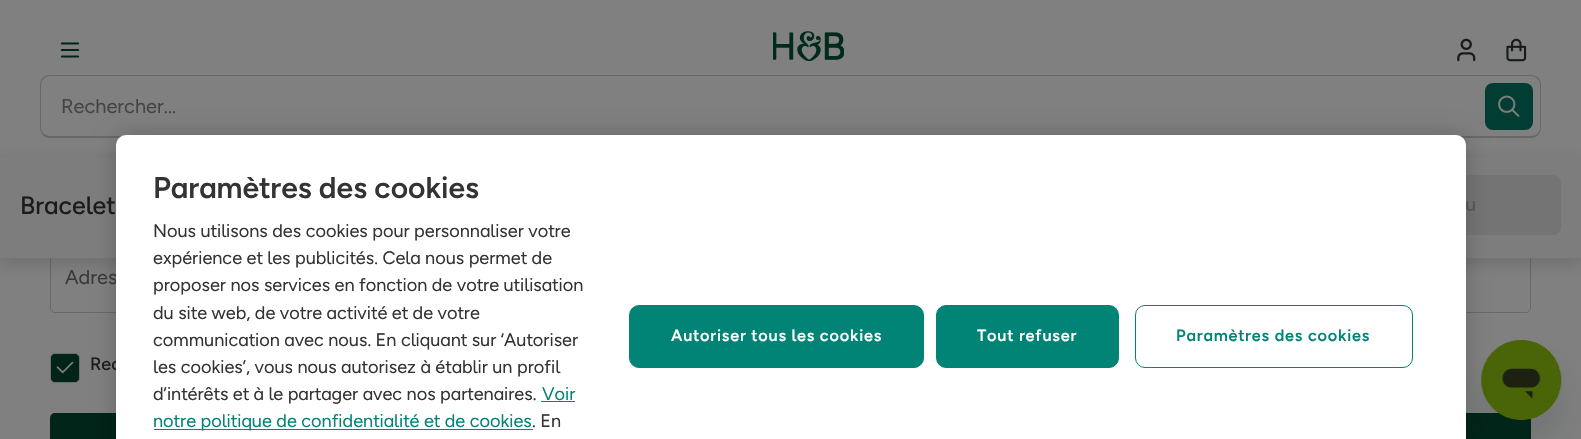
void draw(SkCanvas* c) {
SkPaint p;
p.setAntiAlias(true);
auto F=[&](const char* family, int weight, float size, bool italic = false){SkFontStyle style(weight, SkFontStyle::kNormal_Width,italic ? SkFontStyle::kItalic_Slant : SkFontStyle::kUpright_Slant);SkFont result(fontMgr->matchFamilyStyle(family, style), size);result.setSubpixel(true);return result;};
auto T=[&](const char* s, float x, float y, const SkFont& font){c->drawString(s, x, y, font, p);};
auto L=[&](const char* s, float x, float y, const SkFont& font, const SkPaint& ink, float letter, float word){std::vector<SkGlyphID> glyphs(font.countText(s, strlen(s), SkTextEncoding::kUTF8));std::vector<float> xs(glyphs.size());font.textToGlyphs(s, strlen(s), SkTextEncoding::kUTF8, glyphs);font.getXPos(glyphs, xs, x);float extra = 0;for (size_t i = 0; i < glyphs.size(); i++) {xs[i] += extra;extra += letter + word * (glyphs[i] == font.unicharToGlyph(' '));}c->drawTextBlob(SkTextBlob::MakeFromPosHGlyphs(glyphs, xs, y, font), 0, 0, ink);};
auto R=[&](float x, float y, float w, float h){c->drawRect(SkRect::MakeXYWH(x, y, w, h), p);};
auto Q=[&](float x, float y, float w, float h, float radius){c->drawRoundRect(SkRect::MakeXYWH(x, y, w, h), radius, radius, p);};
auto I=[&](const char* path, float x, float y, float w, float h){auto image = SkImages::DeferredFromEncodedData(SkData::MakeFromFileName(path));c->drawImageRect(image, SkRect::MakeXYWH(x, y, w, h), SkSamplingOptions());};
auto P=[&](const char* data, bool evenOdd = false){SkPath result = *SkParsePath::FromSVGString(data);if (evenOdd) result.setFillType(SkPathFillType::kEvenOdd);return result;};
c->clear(0xff808080);
I("1.png",60,42,20,16);
I("2.png",773,31,71,30);
I("3.png",1457,38,19,24);
I("4.png",1506,38,21,24);
p.setStroke(true);
p.setStrokeWidth(1);
p.setColor(0xff686869);
c->drawRoundRect(SkRect::MakeXYWH(50.5,243.5,1480,69),4.5,4.5,p);
p.setStroke(false);
p.setColor(0x291a1a1a);
p.setMaskFilter(SkMaskFilter::MakeBlur(kNormal_SkBlurStyle, 7.5));
c->drawRect(SkRect::MakeXYWH(0,160,1581,105),p);
p.setMaskFilter(nullptr);
p.setColor(0xff686869);
c->drawPath(P("M50 75h1435v63h-1435c-6 0-10-5-10-10v-43c0-6 4-10 10-10zm0 1h1435v60h-1435c-5 0-9-4-9-8v-43c0-5 4-9 9-9z",true),p);
auto f1 = F("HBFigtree",400,20);
p.setColor(0xff444446);
T("Rechercher...",61,113,f1);
p.setColor(0xff686869);
c->drawPath(P("M1485 75h46c6 0 10 4 10 10v43c0 5-4 10-10 10h-46zm0 1h46c5 0 9 4 9 9v43c0 4-4 8-9 8h-46z",true),p);
p.setColor(0xff013d33);
Q(1485,83,48,47,8);
I("5.png",1498,95,22,22);
p.setColor(0xff7d7d7d);
R(0,157,1581,101);
auto f2 = F("HBFigtree",500,25);
p.setColor(0xff1a1b1e);
T("Bracelet",20,214,f2);
p.setColor(0xff747474);
Q(1290,175,271,60,8);
auto f3 = F("HBFigtree",600,20);
p.setColor(0xff5c5c5d);
T("u",1465,211,f3);
p.setColor(0xff38393b);
T("Adres",65,284,f1);
p.setColor(0xff002417);
c->drawRoundRect(SkRect::MakeXYWH(50.5,353.5,29,29),4.5,4.5,p);
p.setStroke(true);
p.setColor(0xff6e6e6f);
c->drawRoundRect(SkRect::MakeXYWH(50.5,353.5,29,29),4.5,4.5,p);
I("6.png",56,361,18,13);
auto f4 = F("HBFigtree",500,18);
p.setStroke(false);
p.setColor(0xff1a1b1e);
T("Rec",90,370,f4);
p.setColor(0xff002417);
Q(50,413,1481,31,5);
p.setColor(0x260c2527);
p.setMaskFilter(SkMaskFilter::MakeBlur(kNormal_SkBlurStyle, 19));
c->drawRoundRect(SkRect::MakeXYWH(1481,365,80,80),40,40,p);
p.setMaskFilter(nullptr);
I("7.png",1481,340,81,80);
p.setColor(0x33000000);
p.setMaskFilter(SkMaskFilter::MakeBlur(kNormal_SkBlurStyle, 11));
c->drawRoundRect(SkRect::MakeXYWH(116,135,1350,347),10,10,p);
p.setMaskFilter(nullptr);
p.setColor(0xffffffff);
Q(116,135,1350,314,10);
auto f5 = F("HBFigtree",600,30);
p.setColor(0xff333333);
T("Paramètres des cookies",153,198,f5);
auto f6 = F("HBFigtree",400,18.1);
T("Nous utilisons des cookies pour personnaliser votre",153,237,f6);
T("expérience et les publicités. Cela nous permet de",153,264,f6);
T("proposer nos services en fonction de votre utilisation",153,291,f6);
T("du site web, de votre activité et de votre",153,319,f6);
T("communication avec nous. En cliquant sur ‘Autoriser",153,346,f6);
T("les cookies’, vous nous autorisez à établir un profil",153,373,f6);
T("d’intérêts et à le partager avec nos partenaires.",153,400,f6);
p.setColor(0xff018476);
T("Voir",542,400,f6);
R(541,401,34,1);
R(154,429,379,1);
T("notre politique de confidentialité et de cookies",153,427,f6);
p.setColor(0xff333333);
T(". En",532,427,f6);
p.setColor(0xff018476);
c->drawRoundRect(SkRect::MakeXYWH(629.5,305.5,294,62),9.5,9.5,p);
p.setStroke(true);
c->drawRoundRect(SkRect::MakeXYWH(629.5,305.5,294,62),9.5,9.5,p);
auto f7 = F("HBFigtree",600,16.25);
p.setStroke(false);
p.setColor(0xffffffff);
L("Autoriser tous les cookies",671,341,f7,p,.8,0);
p.setColor(0xff018476);
c->drawRoundRect(SkRect::MakeXYWH(936.5,305.5,182,62),9.5,9.5,p);
p.setStroke(true);
c->drawRoundRect(SkRect::MakeXYWH(936.5,305.5,182,62),9.5,9.5,p);
p.setStroke(false);
p.setColor(0xffffffff);
L("Tout refuser",977,341,f7,p,.8,0);
p.setStroke(true);
p.setColor(0xff018476);
c->drawRoundRect(SkRect::MakeXYWH(1135.5,305.5,277,62),9.5,9.5,p);
p.setStroke(false);
L("Paramètres des cookies",1176,341,f7,p,.8,0);
}
